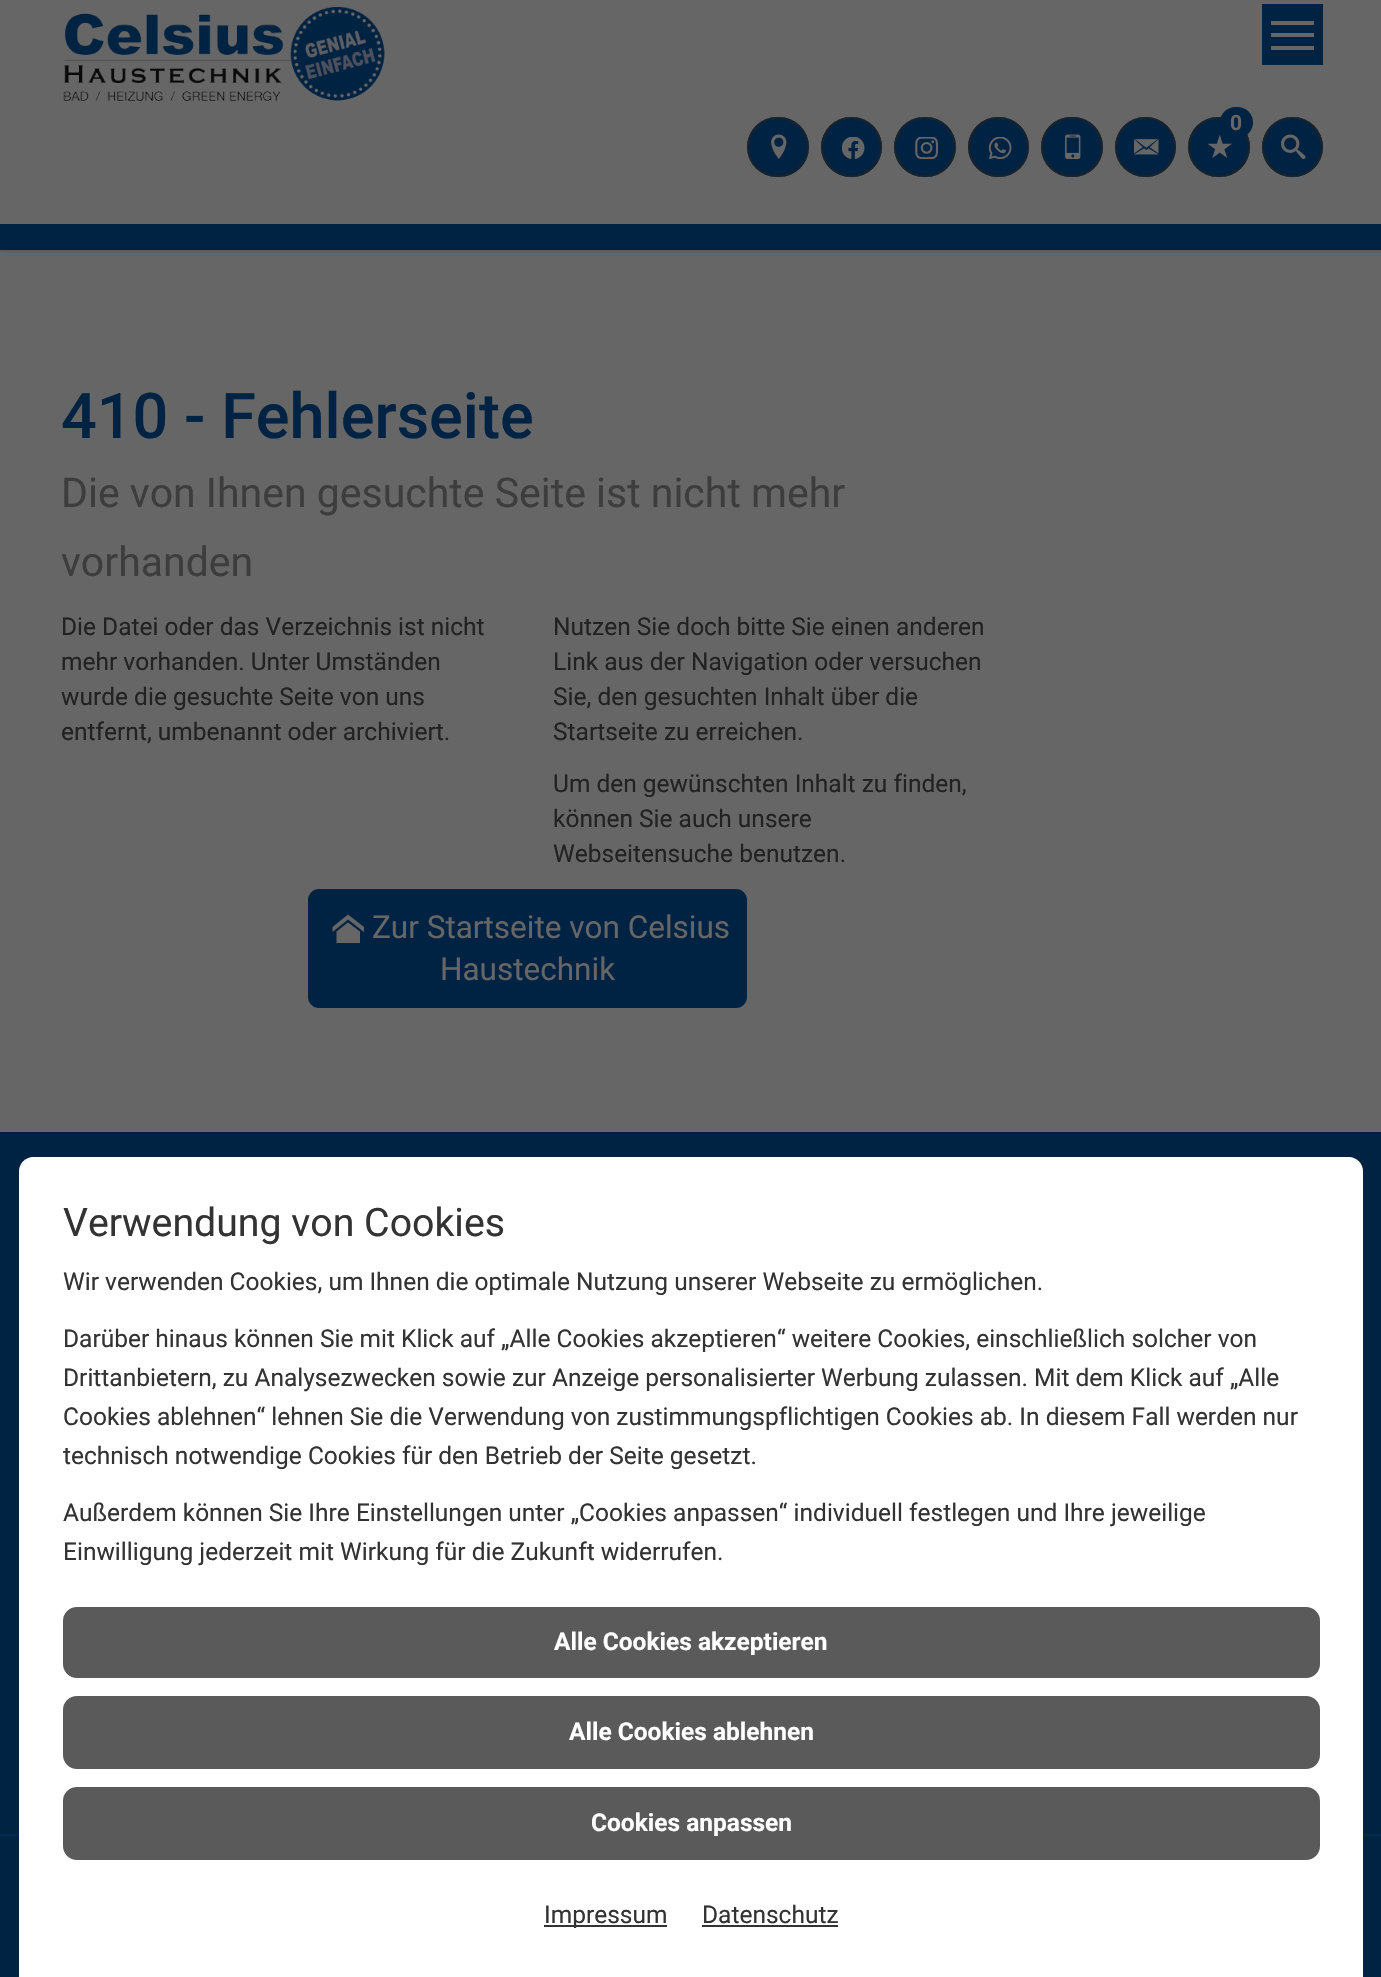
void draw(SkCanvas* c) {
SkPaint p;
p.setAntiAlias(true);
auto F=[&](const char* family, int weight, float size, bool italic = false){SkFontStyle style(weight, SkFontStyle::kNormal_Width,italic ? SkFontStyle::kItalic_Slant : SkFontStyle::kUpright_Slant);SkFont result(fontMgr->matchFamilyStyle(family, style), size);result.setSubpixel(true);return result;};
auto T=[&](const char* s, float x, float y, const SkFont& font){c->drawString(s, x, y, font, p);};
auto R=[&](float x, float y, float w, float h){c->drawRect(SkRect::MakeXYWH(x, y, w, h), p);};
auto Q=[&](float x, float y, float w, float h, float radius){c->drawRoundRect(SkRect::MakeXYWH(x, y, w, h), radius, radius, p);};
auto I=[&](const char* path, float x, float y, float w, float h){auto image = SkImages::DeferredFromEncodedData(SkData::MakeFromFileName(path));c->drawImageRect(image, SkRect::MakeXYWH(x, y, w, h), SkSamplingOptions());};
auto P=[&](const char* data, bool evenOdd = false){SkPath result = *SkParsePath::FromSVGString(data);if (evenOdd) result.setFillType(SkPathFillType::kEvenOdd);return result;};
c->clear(0xff666666);
I("1.png",63,7,322,95);
p.setColor(0xff002343);
R(1262,4,61,61);
p.setColor(0xff666666);
R(1271,21,43,4);
R(1271,33,43,4);
R(1271,46,43,4);
p.setColor(0xff002343);
Q(747,117,62,60,30);
p.setStroke(true);
p.setStrokeWidth(2);
p.setColor(0xbf222222);
c->drawRoundRect(SkRect::MakeXYWH(748,118,60,58),29,29,p);
I("2.png",771,134,16,25);
p.setStroke(false);
p.setColor(0xff002343);
Q(821,117,61,60,30);
p.setStroke(true);
p.setColor(0xbf222222);
c->drawRoundRect(SkRect::MakeXYWH(822,118,59,58),29,29,p);
I("3.png",842,137,23,22);
p.setStroke(false);
p.setColor(0xff002343);
Q(894,117,62,60,30);
p.setStroke(true);
p.setColor(0xbf222222);
c->drawRoundRect(SkRect::MakeXYWH(895,118,60,58),29,29,p);
I("4.png",915,137,23,22);
p.setStroke(false);
p.setColor(0xff002343);
Q(968,117,61,60,30);
p.setStroke(true);
p.setColor(0xbf222222);
c->drawRoundRect(SkRect::MakeXYWH(969,118,59,58),29,29,p);
I("5.png",989,137,23,22);
p.setStroke(false);
p.setColor(0xff002343);
Q(1041,117,62,60,30);
p.setStroke(true);
p.setColor(0xbf222222);
c->drawRoundRect(SkRect::MakeXYWH(1042,118,60,58),29,29,p);
I("6.png",1065,134,16,25);
p.setStroke(false);
p.setColor(0xff002343);
Q(1115,117,61,60,30);
p.setStroke(true);
p.setColor(0xbf222222);
c->drawRoundRect(SkRect::MakeXYWH(1116,118,59,58),29,29,p);
I("7.png",1134,139,25,16);
p.setStroke(false);
p.setColor(0xff002343);
Q(1188,117,62,60,30);
p.setStroke(true);
p.setColor(0xbf222222);
c->drawRoundRect(SkRect::MakeXYWH(1189,118,60,58),29,29,p);
I("8.png",1207,135,25,23);
p.setStroke(false);
p.setColor(0xff002343);
Q(1220,107,33,31,15.5);
auto f1 = F("Roboto",700,21);
p.setColor(0xff666666);
T("0",1230,130,f1);
p.setColor(0xff002343);
Q(1262,117,61,60,30);
p.setStroke(true);
p.setColor(0xbf222222);
c->drawRoundRect(SkRect::MakeXYWH(1263,118,59,58),29,29,p);
I("9.png",1281,134,25,25);
p.setStroke(false);
p.setColor(0x1a000000);
p.setMaskFilter(SkMaskFilter::MakeBlur(kNormal_SkBlurStyle, 1));
c->drawRect(SkRect::MakeXYWH(0,226,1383,26),p);
p.setMaskFilter(nullptr);
p.setColor(0xff002343);
R(0,224,1381,26);
auto f2 = F("Roboto",500,63);
T("410 - Fehlerseite",61,438,f2);
auto f3 = F("Roboto",400,41);
p.setColor(0xff3d3d3d);
T("Die von Ihnen gesuchte Seite ist nicht mehr",61,507,f3);
T("vorhanden",61,576,f3);
auto f4 = F("Roboto",400,24.5);
p.setColor(0xff222222);
T("Die Datei oder das Verzeichnis ist nicht",61,635,f4);
T("mehr vorhanden. Unter Umständen",61,670,f4);
T("wurde die gesuchte Seite von uns",61,705,f4);
T("entfernt, umbenannt oder archiviert.",61,740,f4);
T("Nutzen Sie doch bitte Sie einen anderen",553,635,f4);
T("Link aus der Navigation oder versuchen",553,670,f4);
T("Sie, den gesuchten Inhalt über die",553,705,f4);
T("Startseite zu erreichen.",553,740,f4);
T("Um den gewünschten Inhalt zu finden,",553,792,f4);
T("können Sie auch unsere",553,827,f4);
T("Webseitensuche benutzen.",553,862,f4);
p.setColor(0xff002343);
Q(308,889,439,119,11);
p.setColor(0xff666666);
c->drawPath(P("M364 932l-16-12.5l-15.5 12.5v-5l15.5-12.5l16 12.5zm-4-.5v11.5h-23.5v-11.5l11.5-9z"),p);
auto f5 = F("Roboto",400,31.5);
T("Zur Startseite von Celsius",372,938,f5);
T("Haustechnik",440,980,f5);
p.setColor(0xff002343);
R(0,1134,1381,843);
p.setColor(0xff001e39);
R(0,1132,1381,2);
p.setColor(0xff002a4f);
R(0,1834,1381,2);
p.setColor(0xffffffff);
c->drawPath(P("M33 1157h1316c7.5 0 14 6.5 14 14v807h-1344v-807c0-7.5 6.5-14 14-14z"),p);
auto f6 = F("Roboto",400,39.25);
p.setColor(0xff333333);
T("Verwendung von Cookies",63,1236,f6);
T("Wir verwenden Cookies, um Ihnen die optimale Nutzung unserer Webseite zu ermöglichen.",63,1290,f4);
T("Darüber hinaus können Sie mit Klick auf „Alle Cookies akzeptieren“ weitere Cookies, einschließlich solcher von",63,1347,f4);
T("Drittanbietern, zu Analysezwecken sowie zur Anzeige personalisierter Werbung zulassen. Mit dem Klick auf „Alle",63,1386,f4);
T("Cookies ablehnen“ lehnen Sie die Verwendung von zustimmungspflichtigen Cookies ab. In diesem Fall werden nur",63,1425,f4);
T("technisch notwendige Cookies für den Betrieb der Seite gesetzt.",63,1464,f4);
T("Außerdem können Sie Ihre Einstellungen unter „Cookies anpassen“ individuell festlegen und Ihre jeweilige",63,1521,f4);
T("Einwilligung jederzeit mit Wirkung für die Zukunft widerrufen.",63,1560,f4);
p.setColor(0xff5a5a5a);
c->drawRoundRect(SkRect::MakeXYWH(64,1608,1255,69),13,13,p);
p.setStroke(true);
c->drawRoundRect(SkRect::MakeXYWH(64,1608,1255,69),13,13,p);
auto f7 = F("Roboto",700,24.5);
p.setStroke(false);
p.setColor(0xffffffff);
T("Alle Cookies akzeptieren",554,1650,f7);
p.setColor(0xff5a5a5a);
c->drawRoundRect(SkRect::MakeXYWH(64,1697,1255,71),13,13,p);
p.setStroke(true);
c->drawRoundRect(SkRect::MakeXYWH(64,1697,1255,71),13,13,p);
p.setStroke(false);
p.setColor(0xffffffff);
T("Alle Cookies ablehnen",569,1740,f7);
p.setColor(0xff5a5a5a);
c->drawRoundRect(SkRect::MakeXYWH(64,1788,1255,71),13,13,p);
p.setStroke(true);
c->drawRoundRect(SkRect::MakeXYWH(64,1788,1255,71),13,13,p);
p.setStroke(false);
p.setColor(0xffffffff);
T("Cookies anpassen",591,1831,f7);
p.setColor(0xff333333);
R(544,1925,123,2);
T("Impressum",544,1923,f4);
T("Datenschutz",702,1923,f4);
R(702,1925,136,2);
}
